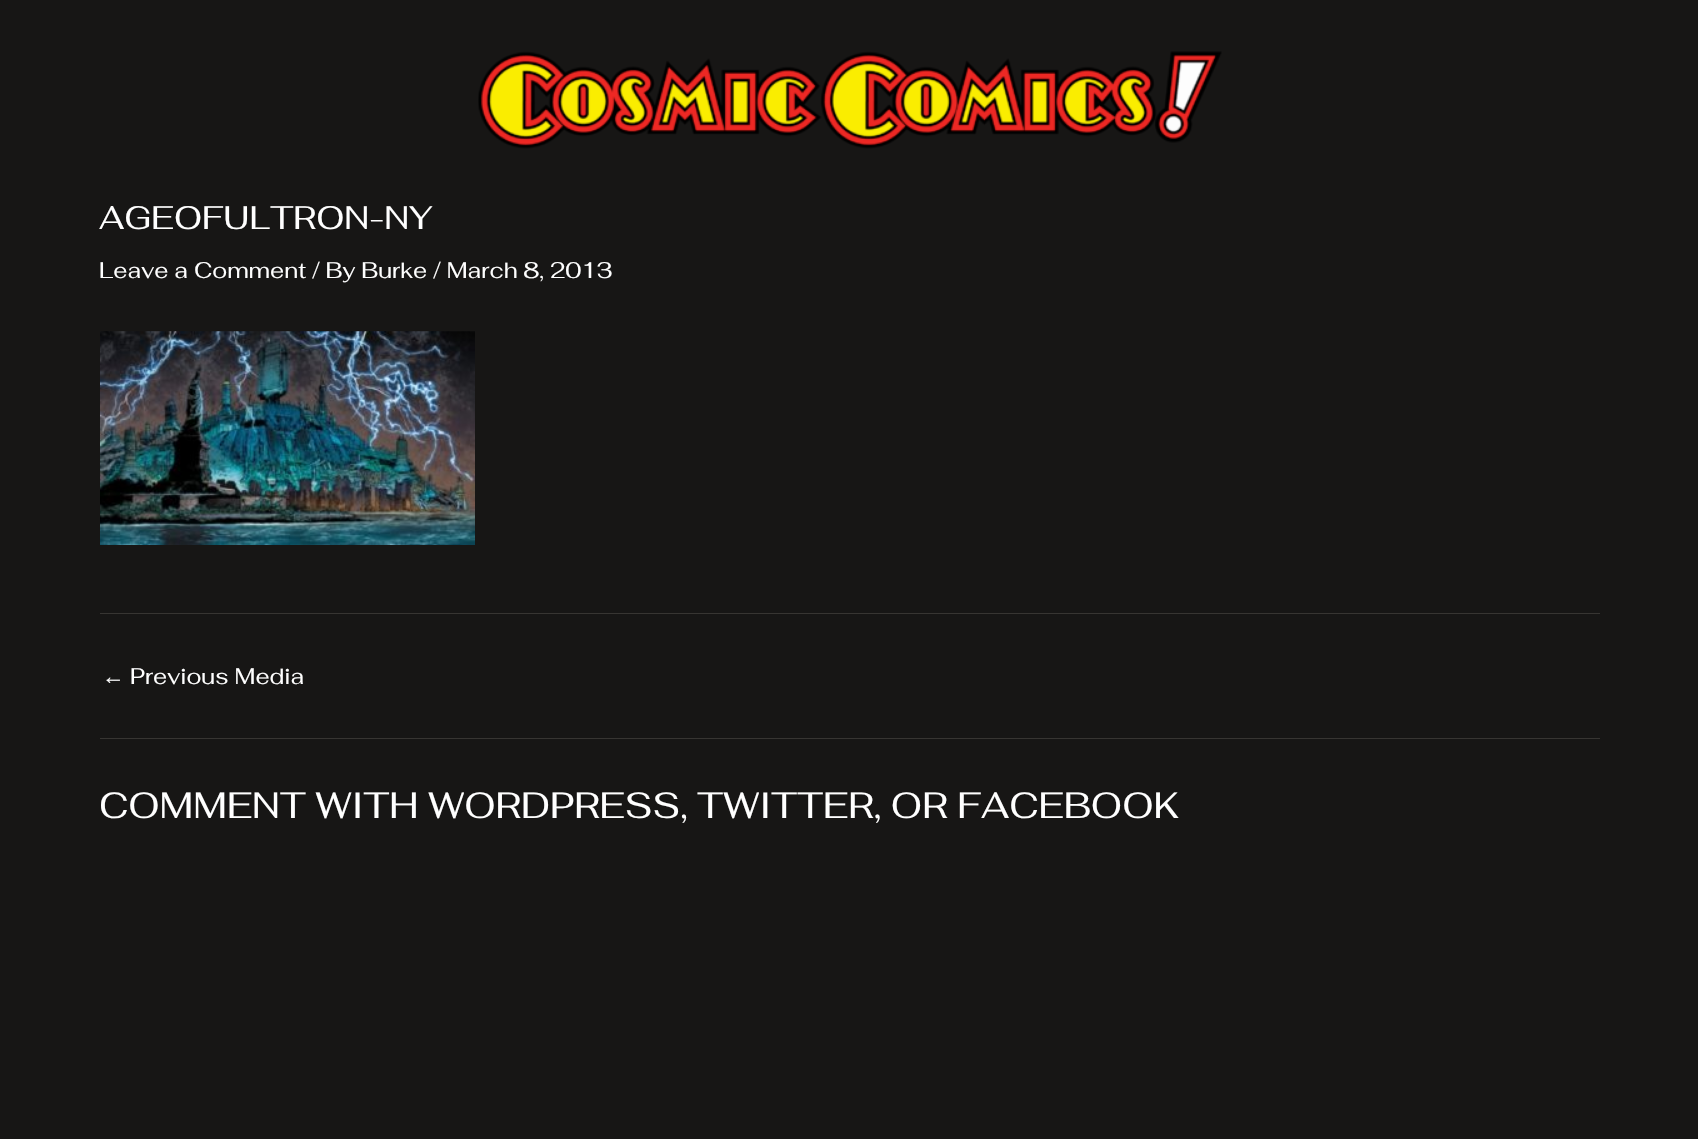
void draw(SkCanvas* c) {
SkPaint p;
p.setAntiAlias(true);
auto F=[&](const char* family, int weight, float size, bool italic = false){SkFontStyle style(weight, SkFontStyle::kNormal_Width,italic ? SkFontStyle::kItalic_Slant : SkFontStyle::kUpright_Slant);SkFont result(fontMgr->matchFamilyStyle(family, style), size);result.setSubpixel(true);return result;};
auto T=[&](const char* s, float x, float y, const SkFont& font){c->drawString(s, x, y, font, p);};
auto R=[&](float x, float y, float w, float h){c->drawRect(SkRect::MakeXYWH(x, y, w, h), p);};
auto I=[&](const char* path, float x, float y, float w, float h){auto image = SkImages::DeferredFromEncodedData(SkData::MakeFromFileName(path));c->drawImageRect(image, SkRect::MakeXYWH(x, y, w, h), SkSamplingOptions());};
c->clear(0xff171615);
I("1.png",478,51,744,98);
auto f1 = F("Fahkwang",400,32.5);
p.setColor(0xffffffff);
T("AGEOFULTRON-NY",99,229,f1);
auto f2 = F("Fahkwang",400,22.5);
T("Leave a Comment / By Burke / March 8, 2013",99,278,f2);
I("2.png",100,331,375,214);
p.setColor(0xff373532);
R(100,613,1500,1);
auto f3 = F("Liberation Sans",400,22.5);
p.setColor(0xffffffff);
T("←",102,684,f3);
T("Previous Media",130,684,f2);
p.setColor(0xff373532);
R(100,738,1500,1);
auto f4 = F("Fahkwang",400,36.25);
p.setColor(0xffffffff);
T("COMMENT WITH WORDPRESS, TWITTER, OR FACEBOOK",99,818,f4);
}
